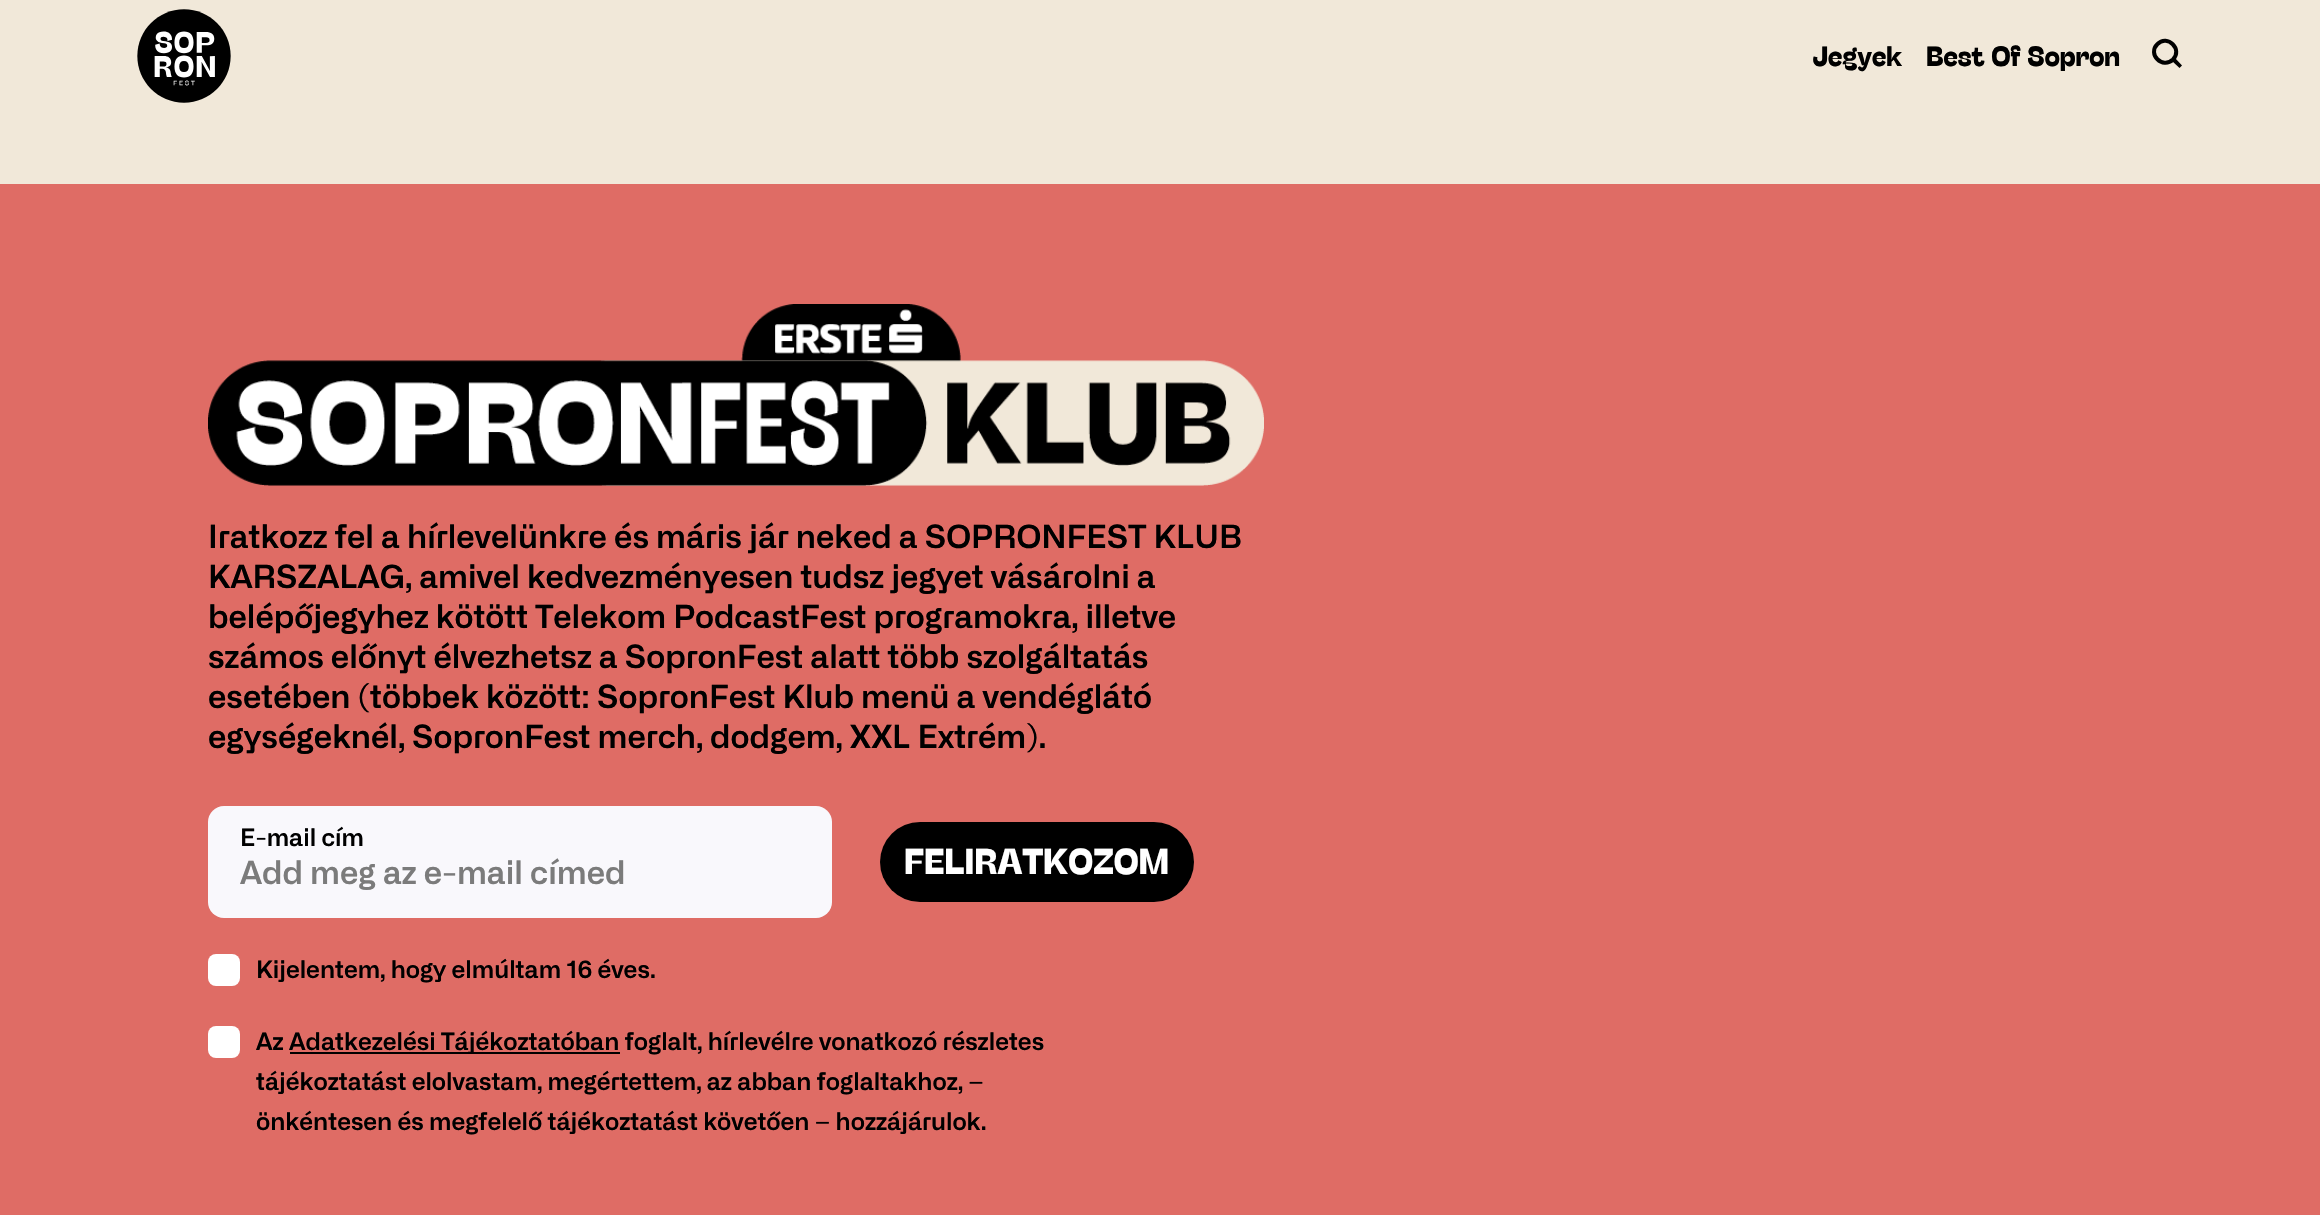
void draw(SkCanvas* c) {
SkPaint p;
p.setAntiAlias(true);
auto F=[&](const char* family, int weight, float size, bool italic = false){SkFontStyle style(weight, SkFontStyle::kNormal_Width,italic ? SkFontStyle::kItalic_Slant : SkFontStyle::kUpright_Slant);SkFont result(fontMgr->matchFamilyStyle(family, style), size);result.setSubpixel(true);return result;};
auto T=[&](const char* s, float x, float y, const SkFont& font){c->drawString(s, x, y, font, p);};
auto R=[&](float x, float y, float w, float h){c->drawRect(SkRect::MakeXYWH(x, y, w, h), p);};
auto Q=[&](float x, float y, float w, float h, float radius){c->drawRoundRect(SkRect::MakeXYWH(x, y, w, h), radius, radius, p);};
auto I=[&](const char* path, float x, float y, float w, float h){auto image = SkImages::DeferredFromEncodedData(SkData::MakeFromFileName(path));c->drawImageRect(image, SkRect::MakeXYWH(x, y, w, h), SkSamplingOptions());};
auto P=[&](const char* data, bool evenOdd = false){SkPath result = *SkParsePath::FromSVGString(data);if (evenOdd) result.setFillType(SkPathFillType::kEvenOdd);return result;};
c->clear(0xfff1e8d9);
I("1.png",137,9,94,94);
auto f1 = F("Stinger",700,28);
p.setColor(0xff000000);
T("Jegyek",1813,66,f1);
T("Best Of Sopron",1926,66,f1);
p.setStroke(true);
p.setStrokeWidth(4);
c->drawPath(P("M2157.5 44c10-10 25.5 5.5 15.5 15.5c-10.5 10-26-5.5-15.5-15.5z"),p);
p.setStroke(false);
c->drawPath(P("M2182 65.5l-2.5 2.5l-7.5-7l3-3z"),p);
p.setColor(0xffdf6c65);
R(0,184,2320,1031);
I("2.png",208,304,1056,182);
auto f2 = F("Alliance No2",600,32);
p.setColor(0xff000000);
T("Iratkozz fel a hírlevelünkre és máris jár neked a SOPRONFEST KLUB",208,548,f2);
T("KARSZALAG, amivel kedvezményesen tudsz jegyet vásárolni a",208,588,f2);
T("belépőjegyhez kötött Telekom PodcastFest programokra, illetve",208,628,f2);
T("számos előnyt élvezhetsz a SopronFest alatt több szolgáltatás",208,668,f2);
T("esetében (többek között: SopronFest Klub menü a vendéglátó",208,708,f2);
T("egységeknél, SopronFest merch, dodgem, XXL Extrém).",208,748,f2);
p.setColor(0xfff9f8fc);
Q(208,806,624,112,16);
auto f3 = F("Alliance No2",600,24);
p.setColor(0xff000000);
T("E-mail cím",240,846,f3);
p.setColor(0xff7b7b7b);
T("Add meg az e-mail címed",240,884,f2);
p.setColor(0xff000000);
Q(880,822,314,80,40);
auto f4 = F("Stinger",700,36);
p.setColor(0xffffffff);
T("FELIRATKOZOM",904,874,f4);
Q(208,954,32,32,8);
p.setColor(0xff000000);
T("Kijelentem, hogy elmúltam 16 éves.",256,978,f3);
p.setColor(0xffffffff);
Q(208,1026,32,32,8);
p.setColor(0xff000000);
T("Az",256,1050,f3);
R(290,1052,330,2);
T("Adatkezelési Tájékoztatóban foglalt, hírlevélre vonatkozó részletes",289,1050,f3);
T("tájékoztatást elolvastam, megértettem, az abban foglaltakhoz, –",256,1090,f3);
T("önkéntesen és megfelelő tájékoztatást követően – hozzájárulok.",256,1130,f3);
}
